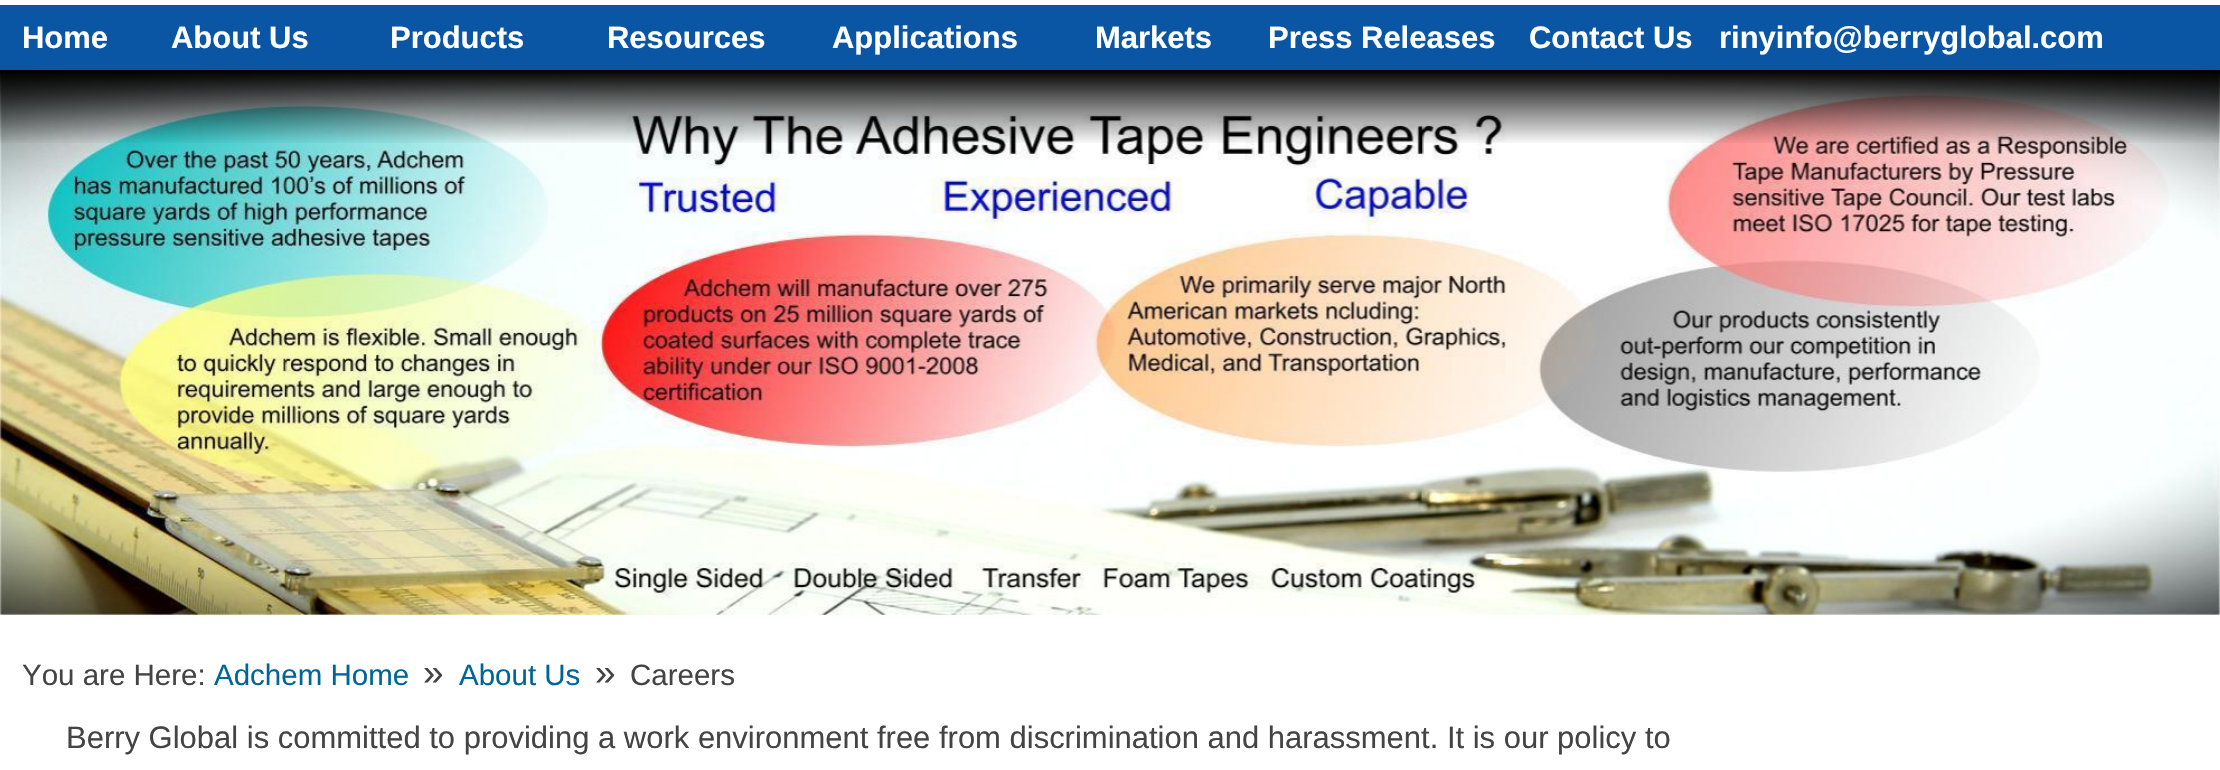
void draw(SkCanvas* c) {
SkPaint p;
p.setAntiAlias(true);
auto F=[&](const char* family, int weight, float size, bool italic = false){SkFontStyle style(weight, SkFontStyle::kNormal_Width,italic ? SkFontStyle::kItalic_Slant : SkFontStyle::kUpright_Slant);SkFont result(fontMgr->matchFamilyStyle(family, style), size);result.setSubpixel(true);return result;};
auto T=[&](const char* s, float x, float y, const SkFont& font){c->drawString(s, x, y, font, p);};
auto R=[&](float x, float y, float w, float h){c->drawRect(SkRect::MakeXYWH(x, y, w, h), p);};
auto I=[&](const char* path, float x, float y, float w, float h){auto image = SkImages::DeferredFromEncodedData(SkData::MakeFromFileName(path));c->drawImageRect(image, SkRect::MakeXYWH(x, y, w, h), SkSamplingOptions());};
c->clear(0xffffffff);
p.setColor(0xff0a56a4);
R(0,5,2220,65);
auto f1 = F("Liberation Sans",700,30.98);
p.setColor(0xffffffff);
T("Home",22,48,f1);
T("About Us",171,48,f1);
T("Products",390,48,f1);
T("Resources",607,48,f1);
T("Applications",832,48,f1);
T("Markets",1095,48,f1);
T("Press Releases",1268,48,f1);
T("Contact Us",1529,48,f1);
T("rinyinfo@berryglobal.com",1719,48,f1);
I("1.png",0,70,2220,545);
{
const SkColor colors[] = {0xff000000,0x00000000};
const float stops[] = {0,1};
const SkPoint ends[] = {{1110,70}, {1110,145}};
p.setShader(SkGradientShader::MakeLinear(ends, colors, stops, 2, SkTileMode::kClamp));
p.setAlpha(255);
}
R(0,70,2220,73);
auto f2 = F("Liberation Sans",400,29.5);
p.setShader(nullptr);
p.setColor(0xff444444);
T("You are Here:",22,685,f2);
p.setColor(0xff006699);
T("Adchem Home",214,685,f2);
auto f3 = F("Liberation Sans",400,37);
p.setColor(0xff444444);
T("»",423,685,f3);
p.setColor(0xff006699);
T("About Us",459,685,f2);
p.setColor(0xff444444);
T("»",595,685,f3);
T("Careers",630,685,f2);
auto f4 = F("Liberation Sans",400,30.98);
T("Berry Global is committed to providing a work environment free from discrimination and harassment. It is our policy to",66,748,f4);
}
